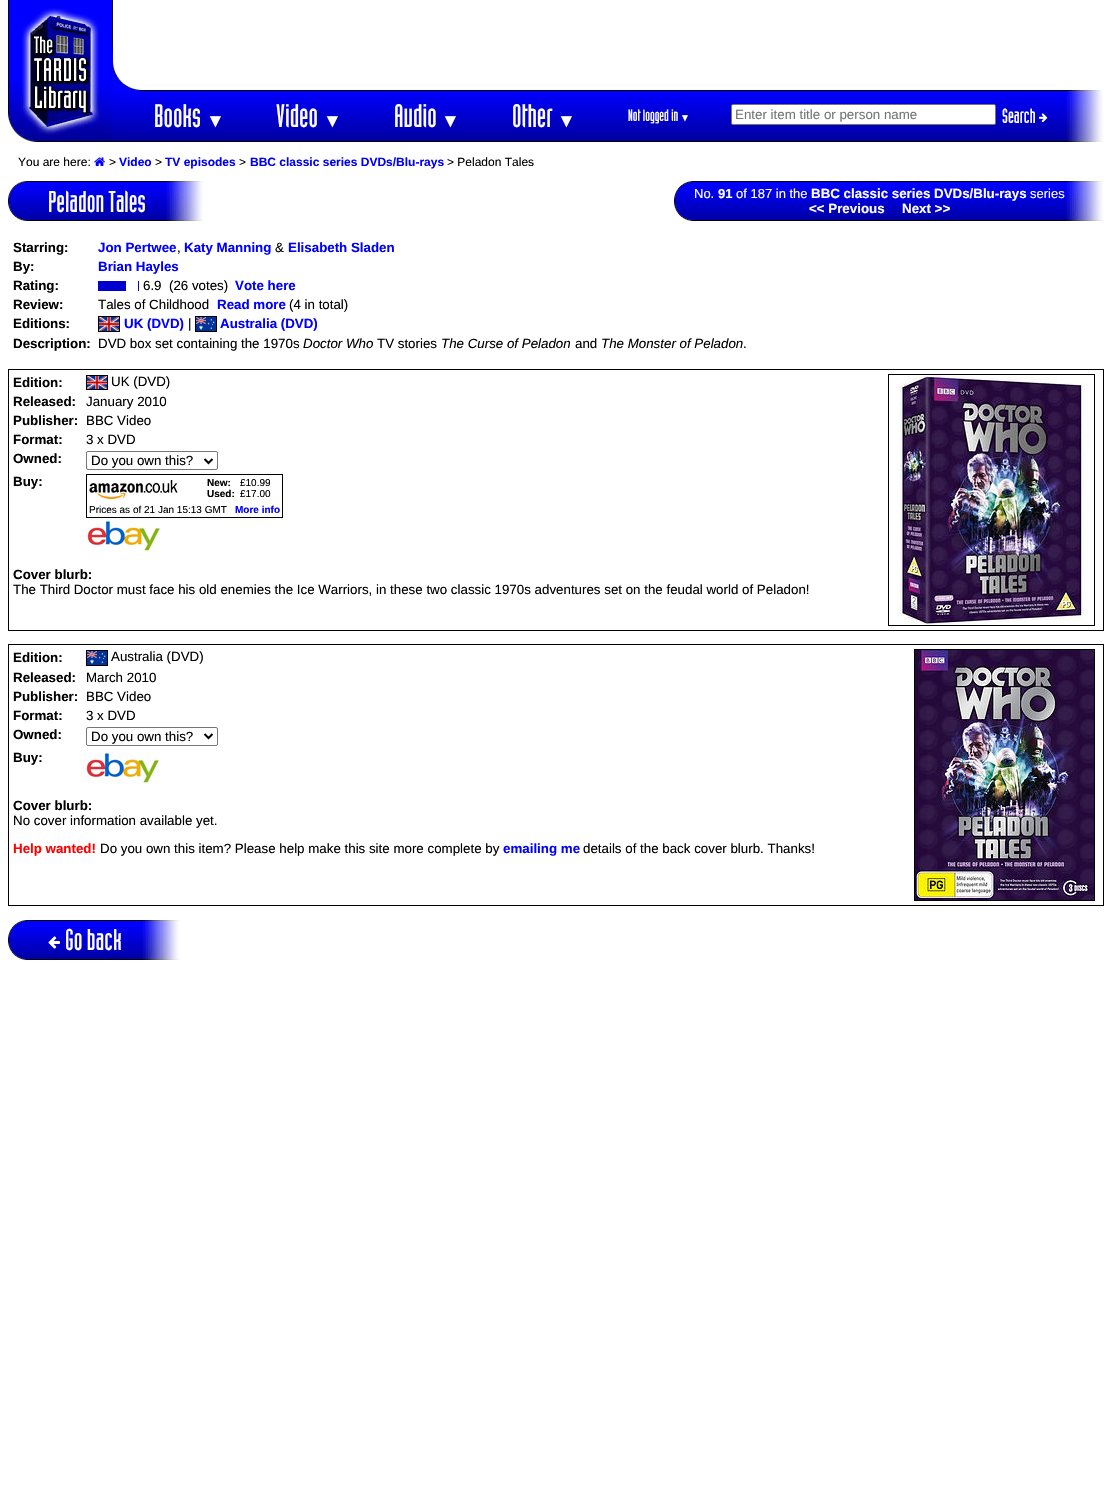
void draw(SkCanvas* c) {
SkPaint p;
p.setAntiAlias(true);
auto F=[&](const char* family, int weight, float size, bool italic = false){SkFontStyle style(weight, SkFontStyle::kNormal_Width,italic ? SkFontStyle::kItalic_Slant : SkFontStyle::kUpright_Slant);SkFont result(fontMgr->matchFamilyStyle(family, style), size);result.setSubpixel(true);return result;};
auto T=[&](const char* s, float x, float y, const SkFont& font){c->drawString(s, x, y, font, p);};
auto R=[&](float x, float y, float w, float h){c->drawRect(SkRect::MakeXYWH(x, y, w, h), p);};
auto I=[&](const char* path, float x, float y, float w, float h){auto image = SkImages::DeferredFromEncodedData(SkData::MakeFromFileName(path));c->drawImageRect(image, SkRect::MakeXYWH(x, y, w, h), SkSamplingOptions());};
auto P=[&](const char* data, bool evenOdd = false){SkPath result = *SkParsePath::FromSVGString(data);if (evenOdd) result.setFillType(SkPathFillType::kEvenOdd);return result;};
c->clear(0xffffffff);
I("1.png",8,0,105,142);
I("2.png",21,8,80,127);
I("3.png",113,62,28,28);
p.setColor(0xff000000);
R(143,90,924,1);
I("4.png",1067,90,37,1);
I("5.png",113,90,30,1);
{
const SkColor colors[] = {0xff0000ff,0xff0000a0};
const float stops[] = {0,1};
const SkPoint ends[] = {{589,91}, {589,141}};
p.setShader(SkGradientShader::MakeLinear(ends, colors, stops, 2, SkTileMode::kClamp));
p.setAlpha(255);
}
R(113,91,952,50);
auto f1 = F("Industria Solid",400,32);
p.setShader(nullptr);
p.setColor(0xffffffff);
T("Books",154,127,f1);
auto f2 = F("Liberation Sans",400,19);
T("▼",206,127,f2);
T("Video",276,127,f1);
T("▼",323,127,f2);
T("Audio",394,127,f1);
T("▼",441,127,f2);
T("Other",512,127,f1);
T("▼",557,127,f2);
auto f3 = F("Industria Solid",400,16);
T("Not logged in",628,121,f3);
auto f4 = F("Liberation Sans",400,10);
T("▼",680,121,f4);
c->drawRoundRect(SkRect::MakeXYWH(731.5,104.5,264,20),1.5,1.5,p);
p.setStroke(true);
p.setStrokeWidth(1);
p.setColor(0xff767676);
c->drawRoundRect(SkRect::MakeXYWH(731.5,104.5,264,20),1.5,1.5,p);
auto f5 = F("Liberation Sans",400,13.33);
p.setStroke(false);
p.setColor(0xff757575);
T("Enter item title or person name",735,119,f5);
auto f6 = F("Industria Solid",400,20);
p.setColor(0xffffffff);
T("Search",1002,123,f6);
I("6.png",1039,113,9,10);
I("7.png",1065,91,39,50);
p.setColor(0xff000000);
R(113,141,954,1);
I("4.png",1067,141,37,1);
auto f7 = F("Liberation Sans",400,12);
T("You are here:",18,166,f7);
I("8.png",94,157,11,9);
T(">",109,166,f7);
auto f8 = F("Liberation Sans",700,12);
p.setColor(0xff0000ff);
T("Video",119,166,f8);
p.setColor(0xff000000);
T(">",155,166,f7);
p.setColor(0xff0000ff);
T("TV episodes",165,166,f8);
p.setColor(0xff000000);
T(">",239,166,f7);
p.setColor(0xff0000ff);
T("BBC classic series DVDs/Blu-rays",250,166,f8);
p.setColor(0xff000000);
T("> Peladon Tales",447,166,f7);
I("9.png",8,181,20,1);
R(28,181,137,1);
I("10.png",165,181,39,1);
I("11.png",8,182,20,37);
I("12.png",8,201,20,19);
I("13.png",28,182,137,38);
auto f9 = F("Industria Solid",400,29.5);
p.setColor(0xffffffff);
T("Peladon Tales",48,212,f9);
I("14.png",165,182,39,38);
I("9.png",8,220,20,1);
p.setColor(0xff000000);
R(28,220,137,1);
I("10.png",165,220,39,1);
I("9.png",674,181,20,1);
R(694,181,371,1);
I("10.png",1065,181,39,1);
I("11.png",674,182,20,37);
I("12.png",674,201,20,19);
I("15.png",694,182,371,38);
auto f10 = F("Liberation Sans",400,13);
p.setColor(0xffffffff);
T("No.",694,198,f10);
auto f11 = F("Liberation Sans",700,13);
T("91",718,198,f11);
T("of 187 in the",736,198,f10);
auto f12 = F("Liberation Sans",700,13.33);
T("BBC classic series DVDs/Blu-rays",811,198,f12);
T("series",1030,198,f10);
T("<< Previous",809,213,f12);
T("Next >>",902,213,f12);
I("14.png",1065,182,39,38);
I("9.png",674,220,20,1);
p.setColor(0xff000000);
R(694,220,371,1);
I("10.png",1065,220,39,1);
T("Starring:",13,252,f12);
p.setColor(0xff0000ff);
T("Jon Pertwee",98,252,f12);
p.setColor(0xff000000);
T(",",177,252,f5);
p.setColor(0xff0000ff);
T("Katy Manning",184,252,f12);
p.setColor(0xff000000);
T("&",275,252,f5);
p.setColor(0xff0000ff);
T("Elisabeth Sladen",288,252,f12);
p.setColor(0xff000000);
T("By:",13,271,f12);
p.setColor(0xff0000ff);
T("Brian Hayles",98,271,f12);
p.setColor(0xff000000);
T("Rating:",13,290,f12);
p.setColor(0xff0000d0);
R(98,281,28,10);
R(138,281,1,10);
p.setColor(0xff000000);
T("6.9  (26 votes)",143,290,f5);
p.setColor(0xff0000ff);
T("Vote here",235,290,f12);
p.setColor(0xff000000);
T("Review:",13,309,f12);
T("Tales of Childhood",98,309,f5);
p.setColor(0xff0000ff);
T("Read more",217,309,f12);
p.setColor(0xff000000);
T("(4 in total)",289,309,f5);
T("Editions:",13,328,f12);
p.setStroke(true);
c->drawRect(SkRect::MakeXYWH(98.5,316.5,21,15),p);
I("16.png",99,317,20,14);
p.setStroke(false);
p.setColor(0xff0000ff);
T("UK (DVD)",124,328,f12);
p.setColor(0xff000000);
T("|",188,328,f5);
p.setStroke(true);
c->drawRect(SkRect::MakeXYWH(195.5,316.5,21,15),p);
I("17.png",196,317,20,14);
p.setStroke(false);
p.setColor(0xff0000ff);
T("Australia (DVD)",220,328,f12);
p.setColor(0xff000000);
T("Description:",13,348,f12);
T("DVD box set containing the 1970s",98,348,f5);
auto f13 = F("Liberation Sans",400,13.33,true);
T("Doctor Who",303,348,f13);
T("TV stories",377,348,f5);
T("The Curse of Peladon",441,348,f13);
T("and",575,348,f5);
T("The Monster of Peladon",601,348,f13);
T(".",743,348,f5);
p.setStroke(true);
c->drawRect(SkRect::MakeXYWH(8.5,369.5,1095,261),p);
p.setStroke(false);
T("Edition:",13,387,f12);
p.setStroke(true);
c->drawRect(SkRect::MakeXYWH(86.5,375.5,21,14),p);
I("18.png",87,376,20,13);
p.setStroke(false);
T("UK (DVD)",111,386,f5);
T("Released:",13,406,f12);
T("January 2010",86,406,f5);
T("Publisher:",13,425,f12);
T("BBC Video",86,425,f5);
T("Format:",13,444,f12);
T("3 x DVD",86,444,f5);
T("Owned:",13,463,f12);
p.setStroke(true);
p.setColor(0xff767676);
c->drawRoundRect(SkRect::MakeXYWH(86.5,451.5,131,18),1.5,1.5,p);
p.setStrokeWidth(2);
p.setColor(0xff000000);
c->drawPath(P("M204.5 459l4 4l4-4"),p);
p.setStroke(false);
T("Do you own this?",91,465,f5);
T("Buy:",13,486,f12);
p.setStroke(true);
p.setStrokeWidth(1);
c->drawRect(SkRect::MakeXYWH(86.5,474.5,196,43),p);
I("19.png",89,480,89,19);
auto f14 = F("Liberation Sans",700,10);
p.setStroke(false);
T("New:",207,486,f14);
T("£10.99",240,486,f4);
T("Used:",207,497,f14);
T("£17.00",240,497,f4);
T("Prices as of 21 Jan 15:13 GMT",89,513,f4);
p.setColor(0xff0000ff);
T("More info",235,513,f14);
I("20.png",87,521,73,30);
p.setStroke(true);
p.setColor(0xff000000);
c->drawRect(SkRect::MakeXYWH(888.5,374.5,206,251),p);
I("21.png",897,375,192,250);
p.setStroke(false);
T("Cover blurb:",13,579,f12);
T("The Third Doctor must face his old enemies the Ice Warriors, in these two classic 1970s adventures set on the feudal world of Peladon!",13,594,f5);
p.setStroke(true);
c->drawRect(SkRect::MakeXYWH(8.5,644.5,1095,261),p);
p.setStroke(false);
T("Edition:",13,662,f12);
p.setStroke(true);
c->drawRect(SkRect::MakeXYWH(86.5,650.5,21,15),p);
I("17.png",87,651,20,14);
p.setStroke(false);
T("Australia (DVD)",111,661,f5);
T("Released:",13,682,f12);
T("March 2010",86,682,f5);
T("Publisher:",13,701,f12);
T("BBC Video",86,701,f5);
T("Format:",13,720,f12);
T("3 x DVD",86,720,f5);
T("Owned:",13,739,f12);
p.setStroke(true);
p.setColor(0xff767676);
c->drawRoundRect(SkRect::MakeXYWH(86.5,727.5,131,18),1.5,1.5,p);
p.setStrokeWidth(2);
p.setColor(0xff000000);
c->drawPath(P("M204.5 734l4 4l4-4"),p);
p.setStroke(false);
T("Do you own this?",91,741,f5);
T("Buy:",13,762,f12);
I("20.png",86,753,73,30);
p.setStroke(true);
p.setStrokeWidth(1);
c->drawRect(SkRect::MakeXYWH(914.5,649.5,180,251),p);
I("22.png",915,650,179,250);
p.setStroke(false);
T("Cover blurb:",13,810,f12);
T("No cover information available yet.",13,825,f5);
p.setColor(0xffff0000);
T("Help wanted!",13,853,f12);
p.setColor(0xff000000);
T("Do you own this item? Please help make this site more complete by",100,853,f5);
p.setColor(0xff0000ff);
T("emailing me",503,853,f12);
p.setColor(0xff000000);
T("details of the back cover blurb. Thanks!",583,853,f5);
I("9.png",8,920,20,1);
R(28,920,113,1);
I("10.png",141,920,39,1);
I("11.png",8,921,20,37);
I("12.png",8,940,20,19);
I("23.png",28,921,113,38);
I("24.png",48,936,12,13);
p.setColor(0xffffffff);
T("Go back",65,950,f9);
I("14.png",141,921,39,38);
I("9.png",8,959,20,1);
p.setColor(0xff000000);
R(28,959,113,1);
I("10.png",141,959,39,1);
}
